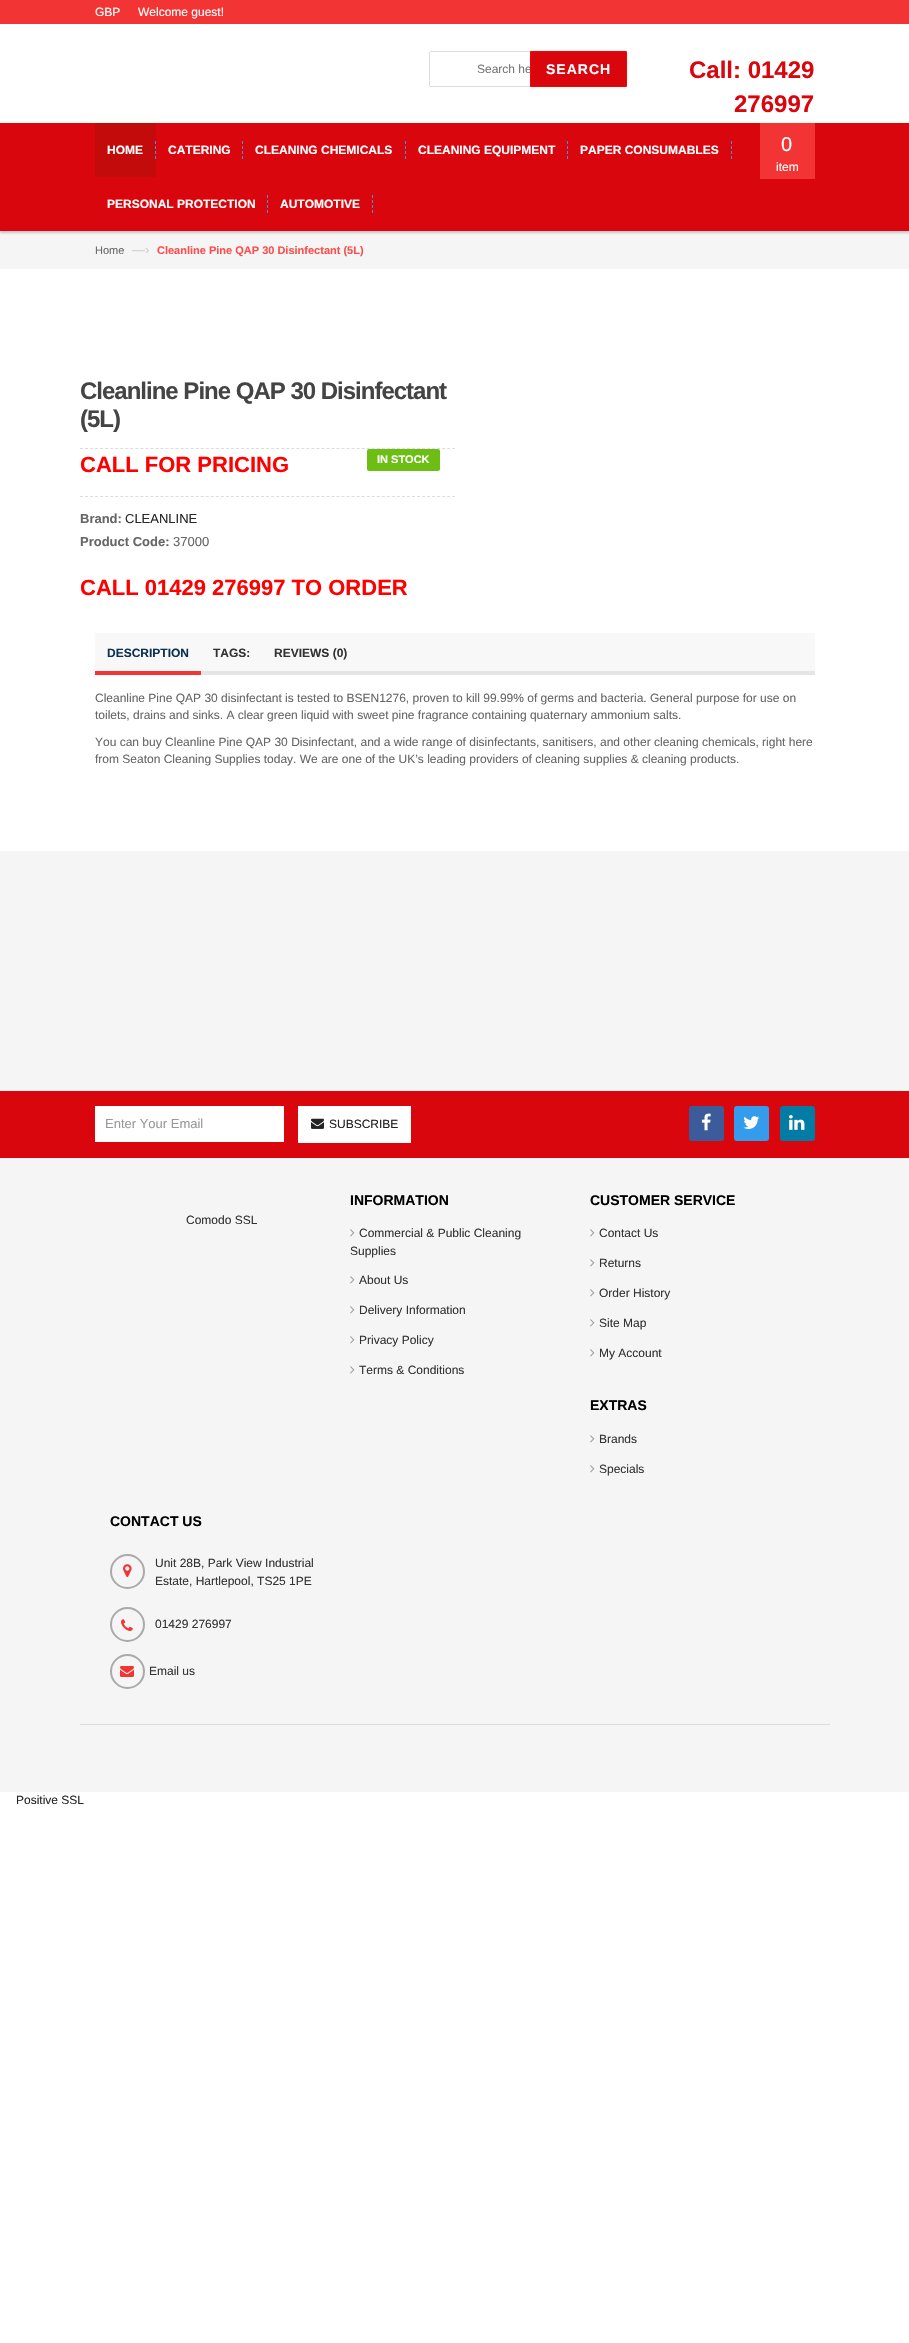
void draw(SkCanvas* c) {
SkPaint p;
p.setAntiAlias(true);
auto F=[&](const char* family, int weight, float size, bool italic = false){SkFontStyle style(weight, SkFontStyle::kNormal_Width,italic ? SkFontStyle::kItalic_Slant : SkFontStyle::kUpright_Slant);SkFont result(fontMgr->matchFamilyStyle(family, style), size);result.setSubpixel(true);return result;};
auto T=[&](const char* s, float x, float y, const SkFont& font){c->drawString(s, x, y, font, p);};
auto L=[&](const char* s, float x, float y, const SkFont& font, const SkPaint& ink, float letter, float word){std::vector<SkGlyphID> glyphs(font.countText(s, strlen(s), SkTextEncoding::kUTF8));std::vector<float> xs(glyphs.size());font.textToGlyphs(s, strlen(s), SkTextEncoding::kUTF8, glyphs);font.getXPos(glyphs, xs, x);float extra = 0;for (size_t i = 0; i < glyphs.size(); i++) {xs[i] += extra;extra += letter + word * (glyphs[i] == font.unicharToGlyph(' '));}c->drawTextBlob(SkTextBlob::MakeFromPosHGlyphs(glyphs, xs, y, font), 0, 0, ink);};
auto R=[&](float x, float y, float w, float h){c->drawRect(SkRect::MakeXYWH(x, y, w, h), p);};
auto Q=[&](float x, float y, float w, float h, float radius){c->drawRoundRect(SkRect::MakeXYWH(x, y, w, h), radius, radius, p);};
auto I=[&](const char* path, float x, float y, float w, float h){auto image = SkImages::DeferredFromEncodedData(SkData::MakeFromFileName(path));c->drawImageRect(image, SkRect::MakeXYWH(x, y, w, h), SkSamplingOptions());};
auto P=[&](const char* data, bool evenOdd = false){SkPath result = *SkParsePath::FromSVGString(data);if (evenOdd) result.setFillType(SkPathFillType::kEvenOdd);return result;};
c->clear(0xffffffff);
p.setColor(0xfff23534);
R(0,0,909,24);
auto f1 = F("Liberation Sans",400,12);
p.setColor(0xffffffff);
T("GBP",95,16,f1);
T("Welcome guest!",138,16,f1);
p.setColor(0xffdddddd);
R(430,51,100,1);
R(430,86,100,1);
R(429,52,1,34);
p.setColor(0xff757575);
T("Search he",477,73,f1);
p.setColor(0xffd9060d);
c->drawPath(P("M530.5 51.5h95.5c.5 0 .5 0 .5 .5v34c0 .5 0 .5-.5 .5h-95.5z"),p);
p.setStroke(true);
p.setStrokeWidth(1);
p.setColor(0xffff0001);
c->drawPath(P("M530.5 51.5h95.5c.5 0 .5 0 .5 .5v34c0 .5 0 .5-.5 .5h-95.5z"),p);
auto f2 = F("Liberation Sans",700,14);
p.setStroke(false);
p.setColor(0xffffffff);
L("SEARCH",546,74,f2,p,1,0);
auto f3 = F("Liberation Sans",700,24);
p.setColor(0xffd9060d);
T("Call: 01429",689,78,f3);
T("276997",734,112,f3);
p.setColor(0xfff5f5f5);
R(0,231,909,38);
p.setColor(0x33000000);
p.setMaskFilter(SkMaskFilter::MakeBlur(kNormal_SkBlurStyle, 1));
c->drawRect(SkRect::MakeXYWH(0,124,909,109),p);
p.setMaskFilter(nullptr);
p.setColor(0xffd9060d);
R(0,123,909,108);
p.setColor(0xffffffff);
R(0,122,909,1);
p.setColor(0xffc30b0b);
R(95,123,61,54);
p.setStroke(true);
p.setColor(0xff3d92e3);
p.setPathEffect(SkDashPathEffect::Make({{3,2}}, 0));
c->drawPath(P("M155.5 141v18"),p);
p.setPathEffect(nullptr);
auto f4 = F("Liberation Sans",700,12);
p.setStroke(false);
p.setColor(0xffffffff);
T("HOME",107,154,f4);
p.setStroke(true);
p.setColor(0xff3d92e3);
p.setPathEffect(SkDashPathEffect::Make({{3,2}}, 0));
c->drawPath(P("M242.5 141v18"),p);
p.setPathEffect(nullptr);
p.setStroke(false);
p.setColor(0xffffffff);
T("CATERING",168,154,f4);
p.setStroke(true);
p.setColor(0xff3d92e3);
p.setPathEffect(SkDashPathEffect::Make({{3,2}}, 0));
c->drawPath(P("M405.5 141v18"),p);
p.setPathEffect(nullptr);
p.setStroke(false);
p.setColor(0xffffffff);
T("CLEANING CHEMICALS",255,154,f4);
p.setStroke(true);
p.setColor(0xff3d92e3);
p.setPathEffect(SkDashPathEffect::Make({{3,2}}, 0));
c->drawPath(P("M567.5 141v18"),p);
p.setPathEffect(nullptr);
p.setStroke(false);
p.setColor(0xffffffff);
T("CLEANING EQUIPMENT",418,154,f4);
p.setStroke(true);
p.setColor(0xff3d92e3);
p.setPathEffect(SkDashPathEffect::Make({{3,2}}, 0));
c->drawPath(P("M731.5 141v18"),p);
p.setPathEffect(nullptr);
p.setStroke(false);
p.setColor(0xffffffff);
T("PAPER CONSUMABLES",580,154,f4);
p.setStroke(true);
p.setColor(0xff3d92e3);
p.setPathEffect(SkDashPathEffect::Make({{3,2}}, 0));
c->drawPath(P("M267.5 195v18"),p);
p.setPathEffect(nullptr);
p.setStroke(false);
p.setColor(0xffffffff);
T("PERSONAL PROTECTION",107,208,f4);
p.setStroke(true);
p.setColor(0xff3d92e3);
p.setPathEffect(SkDashPathEffect::Make({{3,2}}, 0));
c->drawPath(P("M372.5 195v18"),p);
p.setPathEffect(nullptr);
p.setStroke(false);
p.setColor(0xffffffff);
T("AUTOMOTIVE",280,208,f4);
p.setColor(0xfff23534);
R(760,123,55,56);
auto f5 = F("Liberation Sans",400,20);
p.setColor(0xffffffff);
T("0",781,151,f5);
T("item",776,171,f1);
auto f6 = F("Liberation Sans",400,11);
p.setColor(0xff666666);
T("Home",95,254,f6);
auto f7 = F("Liberation Sans",400,13);
p.setColor(0xffcccccc);
T("—›",132,254,f7);
auto f8 = F("Liberation Sans",700,11);
p.setColor(0xffff4c4c);
T("Cleanline Pine QAP 30 Disinfectant (5L)",157,254,f8);
p.setStroke(true);
p.setColor(0xffdddddd);
p.setPathEffect(SkDashPathEffect::Make({{3,2.03f}}, 0));
c->drawPath(P("M80 448.5h375"),p);
p.setPathEffect(nullptr);
p.setStroke(false);
p.setColor(0xff444444);
L("Cleanline Pine QAP 30 Disinfectant",80,399,f3,p,-1,0);
L("(5L)",80,427,f3,p,-1,0);
p.setStroke(true);
p.setColor(0xffdddddd);
p.setPathEffect(SkDashPathEffect::Make({{3,2.03f}}, 0));
c->drawPath(P("M80 496.5h375"),p);
p.setPathEffect(nullptr);
auto f9 = F("Liberation Sans",700,22);
p.setStroke(false);
p.setColor(0xffff0000);
T("CALL FOR PRICING",80,472,f9);
p.setColor(0xff6dbe14);
Q(367,449,73,22,2);
p.setColor(0xffffffff);
T("IN STOCK",377,463,f8);
auto f10 = F("Liberation Sans",700,13);
p.setColor(0xff666666);
T("Brand:",80,523,f10);
p.setColor(0xff282828);
T("CLEANLINE",125,523,f7);
p.setColor(0xff666666);
T("Product Code:",80,546,f10);
T("37000",173,546,f7);
p.setColor(0xffff0000);
T("CALL 01429 276997 TO ORDER",80,595,f9);
p.setColor(0xfff8f8f8);
R(95,633,720,38);
p.setColor(0xffe5e5e5);
R(201,671,614,4);
p.setColor(0xfff23534);
R(95,671,106,4);
p.setColor(0xff0a3151);
T("DESCRIPTION",107,657,f4);
p.setColor(0xff333333);
T("TAGS:",213,657,f4);
T("REVIEWS (0)",274,657,f4);
p.setColor(0xff666666);
T("Cleanline Pine QAP 30 disinfectant is tested to BSEN1276, proven to kill 99.99% of germs and bacteria. General purpose for use on",95,702,f1);
T("toilets, drains and sinks. A clear green liquid with sweet pine fragrance containing quaternary ammonium salts.",95,719,f1);
T("You can buy Cleanline Pine QAP 30 Disinfectant, and a wide range of disinfectants, sanitisers, and other cleaning chemicals, right here",95,746,f1);
T("from Seaton Cleaning Supplies today. We are one of the UK’s leading providers of cleaning supplies & cleaning products.",95,763,f1);
p.setColor(0xfff5f5f5);
R(0,851,909,941);
p.setColor(0xffd9060d);
R(0,1091,909,67);
p.setColor(0xffffffff);
R(95,1106,189,36);
p.setColor(0xff999999);
T("Enter Your Email",105,1128,f7);
p.setColor(0xffffffff);
R(298,1106,113,37);
I("1.png",311,1118,13,11);
p.setColor(0xff222222);
T("SUBSCRIBE",329,1128,f1);
p.setColor(0xff3c5b9b);
Q(689,1106,35,35,3);
I("2.png",701,1113,10,18);
p.setColor(0xff359bed);
Q(734,1106,35,35,3);
I("3.png",743,1116,17,13);
p.setColor(0xff027ba5);
Q(780,1106,35,35,3);
I("4.png",789,1115,16,15);
p.setColor(0xff333333);
T("Comodo SSL",186,1224,f1);
p.setColor(0xff000000);
T("INFORMATION",350,1205,f2);
I("5.png",350,1229,5,8);
p.setColor(0xff333333);
T("Commercial & Public Cleaning",359,1237,f1);
T("Supplies",350,1255,f1);
I("5.png",350,1276,5,8);
T("About Us",359,1284,f1);
I("5.png",350,1306,5,8);
T("Delivery Information",359,1314,f1);
I("5.png",350,1336,5,8);
T("Privacy Policy",359,1344,f1);
I("5.png",350,1366,5,8);
T("Terms & Conditions",359,1374,f1);
p.setColor(0xff000000);
T("CUSTOMER SERVICE",590,1205,f2);
I("5.png",590,1229,5,8);
p.setColor(0xff333333);
T("Contact Us",599,1237,f1);
I("5.png",590,1259,5,8);
T("Returns",599,1267,f1);
I("5.png",590,1289,5,8);
T("Order History",599,1297,f1);
I("5.png",590,1319,5,8);
T("Site Map",599,1327,f1);
I("5.png",590,1349,5,8);
T("My Account",599,1357,f1);
p.setColor(0xff000000);
T("EXTRAS",590,1410,f2);
I("5.png",590,1435,5,8);
p.setColor(0xff333333);
T("Brands",599,1443,f1);
I("5.png",590,1465,5,8);
T("Specials",599,1473,f1);
p.setColor(0xff000000);
T("CONTACT US",110,1526,f2);
p.setStroke(true);
p.setStrokeWidth(2);
p.setColor(0xffaaaaaa);
c->drawCircle(127.5,1571.5,16.5,p);
I("6.png",123,1564,9,13);
p.setStroke(false);
p.setColor(0xff333333);
T("Unit 28B, Park View Industrial",155,1567,f1);
T("Estate, Hartlepool, TS25 1PE",155,1585,f1);
p.setStroke(true);
p.setColor(0xffaaaaaa);
c->drawCircle(127.5,1624.5,16.5,p);
I("7.png",121,1619,12,12);
p.setStroke(false);
p.setColor(0xff333333);
T("01429 276997",155,1628,f1);
p.setStroke(true);
p.setColor(0xffaaaaaa);
c->drawCircle(127.5,1671.5,16.5,p);
I("8.png",120,1666,14,11);
p.setStroke(false);
p.setColor(0xff333333);
T("Email us",149,1675,f1);
p.setColor(0xffdddddd);
R(80,1724,750,1);
p.setColor(0xff282828);
T("Positive SSL",16,1804,f1);
}
